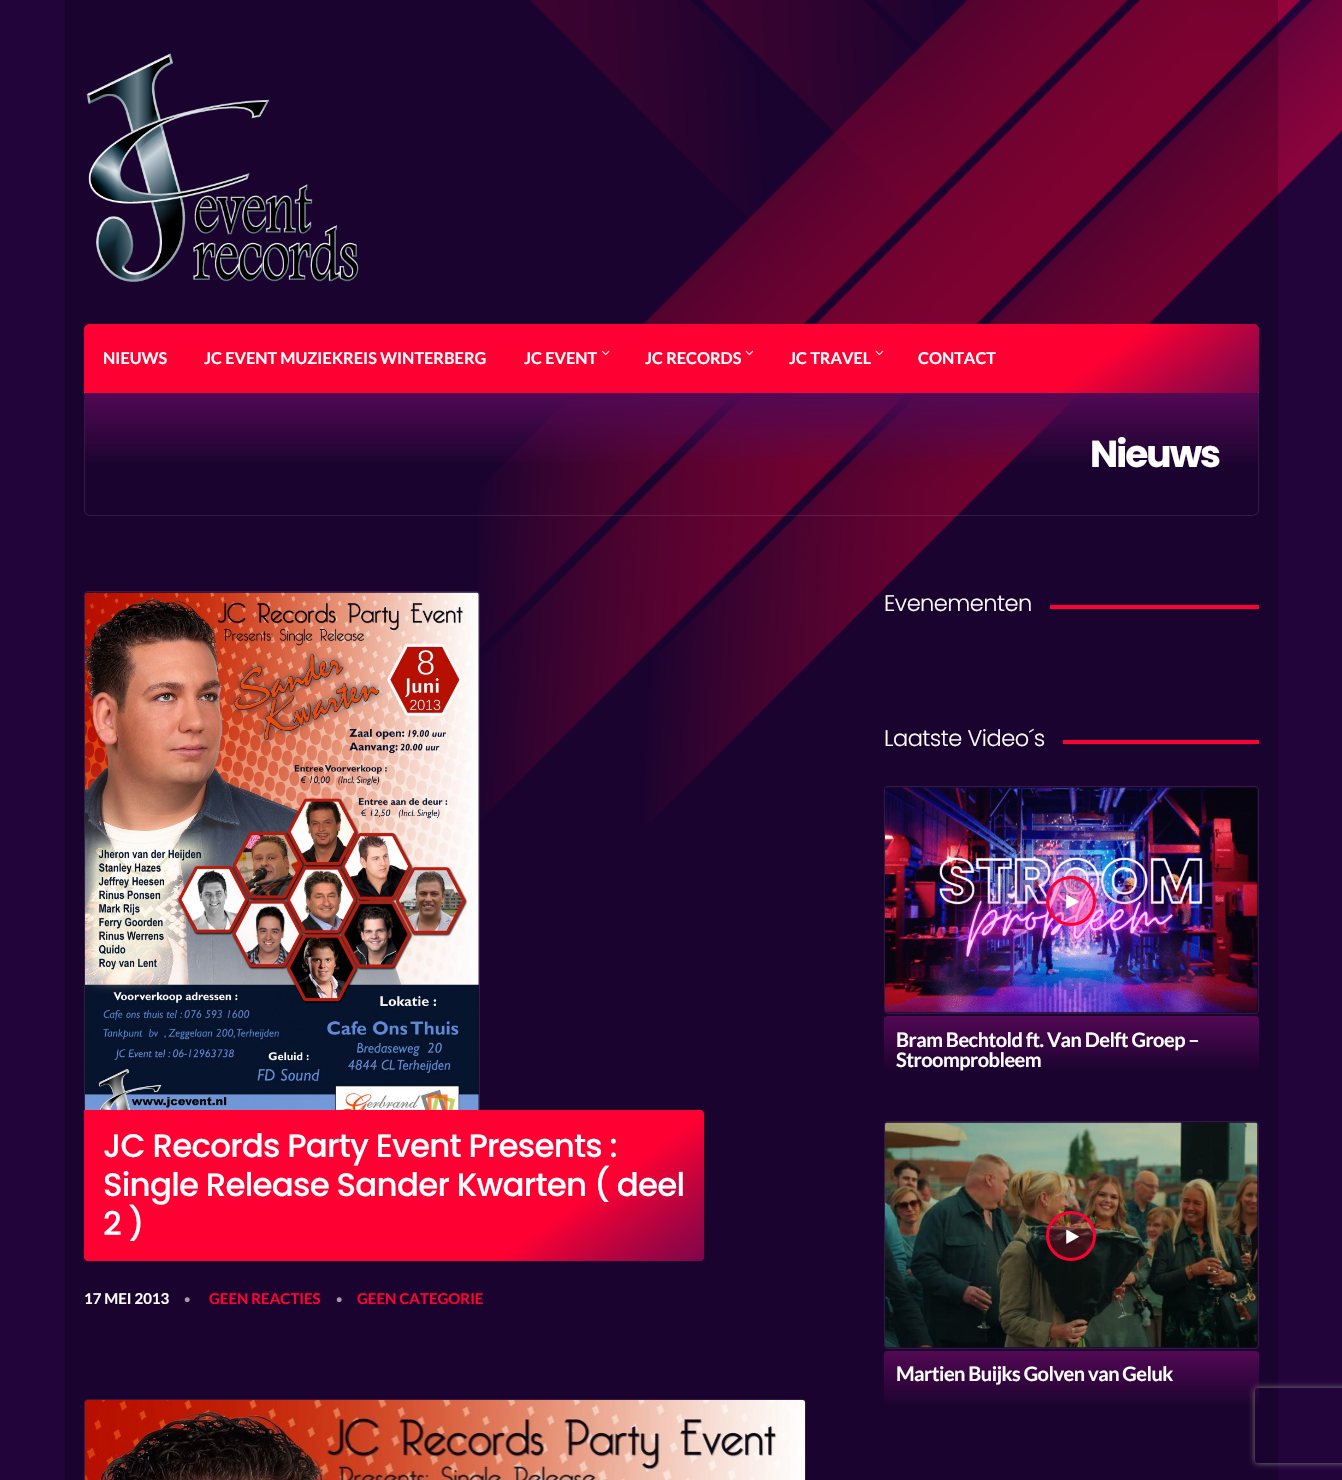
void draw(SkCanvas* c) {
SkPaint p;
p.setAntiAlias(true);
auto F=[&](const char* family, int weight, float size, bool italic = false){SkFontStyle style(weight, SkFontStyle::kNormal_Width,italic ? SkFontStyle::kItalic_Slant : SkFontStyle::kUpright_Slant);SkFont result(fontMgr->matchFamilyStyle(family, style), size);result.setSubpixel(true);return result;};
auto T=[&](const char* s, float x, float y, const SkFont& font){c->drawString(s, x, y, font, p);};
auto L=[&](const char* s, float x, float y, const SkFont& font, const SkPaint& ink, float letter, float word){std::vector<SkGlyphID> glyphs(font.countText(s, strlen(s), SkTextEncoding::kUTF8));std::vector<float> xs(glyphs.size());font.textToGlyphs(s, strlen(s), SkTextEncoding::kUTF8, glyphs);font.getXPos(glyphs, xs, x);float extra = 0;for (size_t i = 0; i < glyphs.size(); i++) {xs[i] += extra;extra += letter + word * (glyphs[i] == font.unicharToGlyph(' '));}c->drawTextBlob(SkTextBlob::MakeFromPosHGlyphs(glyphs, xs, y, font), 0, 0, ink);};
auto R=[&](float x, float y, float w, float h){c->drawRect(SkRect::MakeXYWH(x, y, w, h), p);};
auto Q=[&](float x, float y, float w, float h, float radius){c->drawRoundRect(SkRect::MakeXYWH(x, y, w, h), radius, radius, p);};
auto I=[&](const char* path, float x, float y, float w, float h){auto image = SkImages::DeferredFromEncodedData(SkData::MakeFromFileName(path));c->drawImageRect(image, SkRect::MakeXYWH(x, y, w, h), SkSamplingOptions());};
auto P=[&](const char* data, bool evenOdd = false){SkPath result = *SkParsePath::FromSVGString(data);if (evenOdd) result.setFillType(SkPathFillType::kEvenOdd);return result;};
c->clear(0xff22043b);
p.setColor(0xff1b032f);
R(65,0,1213,1480);
I("1.png",478,0,864,822);
I("2.png",86,53,273,229);
p.setColor(0xffff0032);
c->drawPath(P("M90 324h1163c3.5 0 6 2.5 6 6v63h-1175v-63c0-3.5 2.5-6 6-6z"),p);
{
const SkColor colors[] = {0xb8ff0032,0xa3290a59};
const float stops[] = {.84,1};
const SkPoint ends[] = {{462,59}, {881,657}};
p.setShader(SkGradientShader::MakeLinear(ends, colors, stops, 2, SkTileMode::kClamp));
p.setAlpha(255);
}
c->drawPath(P("M90 324h1163c3.5 0 6 2.5 6 6v63h-1175v-63c0-3.5 2.5-6 6-6z"),p);
auto f1 = F("Lato",700,16.25);
p.setShader(nullptr);
p.setColor(0xffffffff);
T("NIEUWS",103,364,f1);
T("JC EVENT MUZIEKREIS WINTERBERG",204,364,f1);
T("JC EVENT",524,364,f1);
I("3.png",601,350,9,6);
T("JC RECORDS",645,364,f1);
I("4.png",745,350,9,6);
T("JC TRAVEL",789,364,f1);
I("4.png",875,350,9,6);
T("CONTACT",918,364,f1);
{
const SkColor colors[] = {0xff520853,0x00520853};
const float stops[] = {0,.6};
const SkPoint ends[] = {{671,392}, {671,515}};
p.setShader(SkGradientShader::MakeLinear(ends, colors, stops, 2, SkTileMode::kClamp));
p.setAlpha(255);
}
R(85,393,1173,70);
p.setShader(nullptr);
p.setColor(0x1affffff);
c->drawPath(P("M84 392h1175v118c0 3-3 6-7 6h-1162c-3 0-6-3-6-6zm1 0h1173v118c0 3-3 5-6 5h-1162c-3 0-5-2-5-5z",true),p);
auto f2 = F("Poppins",700,37.5);
p.setColor(0xffffffff);
L("Nieuws",1090,467,f2,p,-2,0);
p.setStroke(true);
p.setStrokeWidth(1);
p.setColor(0x1affffff);
c->drawRoundRect(SkRect::MakeXYWH(84.5,591.5,395,562),3.5,3.5,p);
I("5.png",85,592,394,518);
p.setStroke(false);
p.setColor(0xffff0032);
c->drawPath(P("M84 1110h616c2 0 4 2 4 4v143c0 2-2 4-4 4h-612c-2 0-4-2-4-4z"),p);
{
const SkColor colors[] = {0xb8ff0032,0x99290a59};
const float stops[] = {.75,1};
const SkPoint ends[] = {{256,989}, {531,1382}};
p.setShader(SkGradientShader::MakeLinear(ends, colors, stops, 2, SkTileMode::kClamp));
p.setAlpha(255);
}
c->drawPath(P("M84 1110h616c2 0 4 2 4 4v143c0 2-2 4-4 4h-612c-2 0-4-2-4-4z"),p);
auto f3 = F("Poppins",500,32.5);
p.setShader(nullptr);
p.setColor(0xffffffff);
L("JC Records Party Event Presents :",103,1157,f3,p,-.8,0);
L("Single Release Sander Kwarten ( deel",103,1196,f3,p,-.8,0);
L("2 )",103,1235,f3,p,-.8,0);
auto f4 = F("Lato",700,15);
T("17 MEI 2013",84,1304,f4);
auto f5 = F("Lato",700,11);
p.setColor(0xffa49aac);
T("•",184,1303,f5);
p.setColor(0xffff0032);
T("GEEN REACTIES",209,1304,f4);
p.setColor(0xffa49aac);
T("•",336,1303,f5);
p.setColor(0xffff0032);
T("GEEN CATEGORIE",357,1304,f4);
p.setStroke(true);
p.setColor(0xff321c44);
c->drawRoundRect(SkRect::MakeXYWH(84.5,1399.5,721,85),3.5,3.5,p);
I("6.png",85,1400,720,80);
auto f6 = F("Poppins",300,22.5);
p.setStroke(false);
p.setColor(0xffffffff);
L("Evenementen",884,611,f6,p,-.5,0);
p.setColor(0xffff0032);
R(1050,605,209,4);
p.setColor(0xffffffff);
L("Laatste Video´s",884,746,f6,p,-.5,0);
p.setColor(0xffff0032);
R(1063,740,196,4);
p.setStroke(true);
p.setColor(0xff321c44);
c->drawRoundRect(SkRect::MakeXYWH(884.5,786.5,374,227),3.5,3.5,p);
I("7.png",885,787,373,226);
p.setStroke(false);
p.setColor(0x33ff0032);
c->drawCircle(1071,901,23.5,p);
p.setStroke(true);
p.setStrokeWidth(3);
p.setColor(0xffff0032);
c->drawCircle(1071,901,23.5,p);
I("8.png",1066,894,13,15);
p.setStroke(false);
{
const SkColor colors[] = {0xff520853,0xff1b032f};
const float stops[] = {0,.6};
const SkPoint ends[] = {{1071,1016}, {1071,1109}};
p.setShader(SkGradientShader::MakeLinear(ends, colors, stops, 2, SkTileMode::kClamp));
p.setAlpha(255);
}
Q(884,1016,375,93,4);
auto f7 = F("Lato",700,20);
p.setShader(nullptr);
p.setColor(0xffffffff);
L("Bram Bechtold ft. Van Delft Groep –",896,1047,f7,p,-.5,0);
L("Stroomprobleem",896,1067,f7,p,-.5,0);
p.setStroke(true);
p.setStrokeWidth(1);
p.setColor(0xff321c44);
c->drawRoundRect(SkRect::MakeXYWH(884.5,1121.5,374,227),3.5,3.5,p);
I("9.png",885,1122,373,226);
p.setStroke(false);
p.setColor(0x33ff0032);
c->drawCircle(1071,1236,23.5,p);
p.setStroke(true);
p.setStrokeWidth(3);
p.setColor(0xffff0032);
c->drawCircle(1071,1236,23.5,p);
I("10.png",1066,1229,13,15);
p.setStroke(false);
{
const SkColor colors[] = {0xff520853,0xff1b032f};
const float stops[] = {0,.6};
const SkPoint ends[] = {{1071,1351}, {1071,1444}};
p.setShader(SkGradientShader::MakeLinear(ends, colors, stops, 2, SkTileMode::kClamp));
p.setAlpha(255);
}
Q(884,1351,375,93,4);
p.setShader(nullptr);
p.setColor(0xffffffff);
L("Martien Buijks Golven van Geluk",896,1381,f7,p,-.5,0);
c->save();
c->clipPath(P("M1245 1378h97v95h-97zm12.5 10h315c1.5 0 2.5 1 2.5 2.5v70c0 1.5-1 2.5-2.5 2.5h-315c-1.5 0-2.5-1-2.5-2.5v-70c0-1.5 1-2.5 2.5-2.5z",true),true);
p.setColor(0xff808080);
p.setMaskFilter(SkMaskFilter::MakeBlur(kNormal_SkBlurStyle, 3));
c->drawRoundRect(SkRect::MakeXYWH(1255,1388,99,75),2.5,2.5,p);
p.setMaskFilter(nullptr);
c->restore();
}
